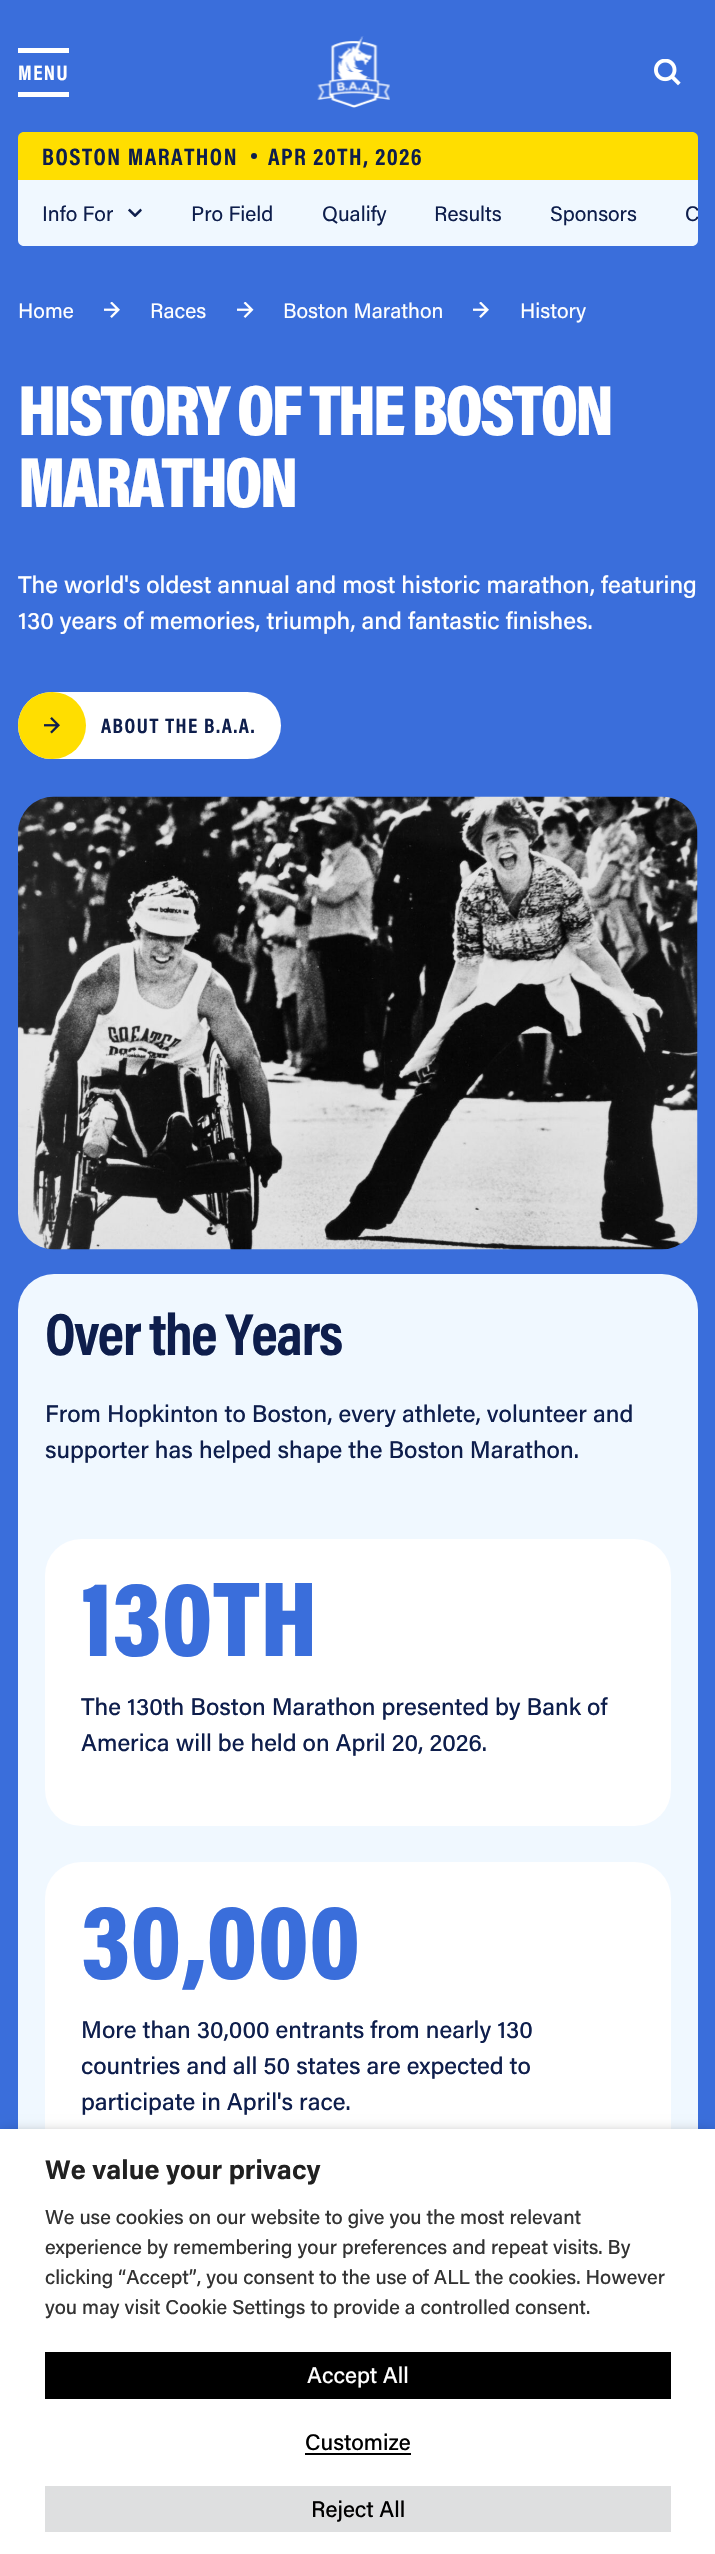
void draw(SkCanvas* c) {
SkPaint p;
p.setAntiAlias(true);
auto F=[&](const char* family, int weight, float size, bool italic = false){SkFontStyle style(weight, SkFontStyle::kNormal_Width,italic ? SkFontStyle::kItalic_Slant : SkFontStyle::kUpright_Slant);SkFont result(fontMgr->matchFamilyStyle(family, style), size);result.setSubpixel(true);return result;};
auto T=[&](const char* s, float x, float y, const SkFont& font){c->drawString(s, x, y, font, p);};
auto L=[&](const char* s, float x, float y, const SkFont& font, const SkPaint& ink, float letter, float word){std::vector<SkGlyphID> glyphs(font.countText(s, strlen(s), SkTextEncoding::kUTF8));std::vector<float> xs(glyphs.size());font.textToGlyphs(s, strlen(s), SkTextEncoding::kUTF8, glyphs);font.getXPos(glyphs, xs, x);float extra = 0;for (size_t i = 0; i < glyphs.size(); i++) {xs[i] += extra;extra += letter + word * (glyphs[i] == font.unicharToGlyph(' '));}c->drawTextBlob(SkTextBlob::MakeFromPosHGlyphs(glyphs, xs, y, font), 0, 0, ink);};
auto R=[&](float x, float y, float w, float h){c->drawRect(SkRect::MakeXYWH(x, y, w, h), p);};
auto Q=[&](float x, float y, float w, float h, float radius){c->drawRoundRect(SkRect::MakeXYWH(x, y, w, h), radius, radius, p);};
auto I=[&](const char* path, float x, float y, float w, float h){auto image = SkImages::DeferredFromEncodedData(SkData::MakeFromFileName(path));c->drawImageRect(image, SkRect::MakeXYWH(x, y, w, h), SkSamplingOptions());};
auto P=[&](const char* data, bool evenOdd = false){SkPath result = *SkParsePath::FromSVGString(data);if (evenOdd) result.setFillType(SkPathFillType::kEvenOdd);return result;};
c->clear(0xff3a6edb);
p.setColor(0xffffffff);
R(18,48,51,5);
R(18,92,51,5);
auto f1 = F("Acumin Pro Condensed",700,21);
L("MENU",18,80,f1,p,1.5,0);
I("1.png",317,36,73,72);
I("2.png",654,59,27,27);
p.setColor(0xffffde00);
c->drawPath(P("M24 132h668c3.5 0 6 2.5 6 6v42h-680v-42c0-3.5 2.5-6 6-6z"),p);
auto f2 = F("Acumin Pro Condensed",700,24);
p.setColor(0xff0e1e4c);
L("BOSTON MARATHON",42,165,f2,p,1.5,0);
c->drawCircle(254,156,3,p);
L("APR 20TH, 2026",268,165,f2,p,1.5,0);
p.setColor(0xfff0f8ff);
c->drawPath(P("M18 180h680v60c0 3.5-2.5 6-6 6h-668c-3.5 0-6-2.5-6-6z"),p);
auto f3 = F("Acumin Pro",400,21);
p.setColor(0xff0e1e4c);
T("Info For",42,221,f3);
I("3.png",128,208,14,9);
T("Pro Field",191,221,f3);
T("Qualify",322,221,f3);
T("Results",434,221,f3);
T("Sponsors",550,221,f3);
c->save();
c->clipPath(P("M18 180h680v60c0 3.5-2.5 6-6 6h-668c-3.5 0-6-2.5-6-6z"),true);
T("C",685,221,f3);
c->restore();
p.setColor(0xffffffff);
T("Home",18,318,f3);
I("4.png",104,302,16,16);
T("Races",150,318,f3);
I("5.png",237,302,17,16);
T("Boston Marathon",283,318,f3);
I("4.png",473,302,16,16);
T("History",520,318,f3);
auto f4 = F("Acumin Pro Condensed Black",900,72);
L("HISTORY OF THE BOSTON",18,435,f4,p,-3,0);
L("MARATHON",18,507,f4,p,-3,0);
auto f5 = F("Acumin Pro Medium",500,24);
T("The world's oldest annual and most historic marathon, featuring",18,593,f5);
T("130 years of memories, triumph, and fantastic finishes.",18,629,f5);
Q(18,692,263,67,33.5);
p.setColor(0xffffde00);
Q(18,692,68,67,33.5);
I("6.png",44,717,16,17);
p.setColor(0xff0e1e4c);
L("ABOUT THE B.A.A.",101,733,f1,p,1.5,0);
I("7.png",18,796,680,454);
p.setColor(0xfff0f8ff);
Q(18,1274,680,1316,36);
auto f6 = F("Acumin Pro Condensed",700,60);
p.setColor(0xff0e1e4c);
L("Over the Years",45,1355,f6,p,-1.5,0);
T("From Hopkinton to Boston, every athlete, volunteer and",45,1422,f5);
T("supporter has helped shape the Boston Marathon.",45,1458,f5);
p.setColor(0xffffffff);
Q(45,1539,626,287,36);
auto f7 = F("Acumin Pro Condensed Black",900,108);
p.setColor(0xff3a6edb);
T("130TH",81,1656,f7);
p.setColor(0xff0e1e4c);
T("The 130th Boston Marathon presented by Bank of",81,1715,f5);
T("America will be held on April 20, 2026.",81,1751,f5);
p.setColor(0xffffffff);
Q(45,1862,626,324,36);
p.setColor(0xff3a6edb);
T("30,000",81,1979,f7);
p.setColor(0xff0e1e4c);
T("More than 30,000 entrants from nearly 130",81,2038,f5);
T("countries and all 50 states are expected to",81,2074,f5);
T("participate in April's race.",81,2110,f5);
p.setColor(0x80000000);
p.setMaskFilter(SkMaskFilter::MakeBlur(kNormal_SkBlurStyle, 7.5));
c->drawRect(SkRect::MakeXYWH(0,2136,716,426),p);
p.setMaskFilter(nullptr);
p.setColor(0xffffffff);
R(0,2129,715,425);
auto f8 = F("Acumin Pro",700,27);
p.setColor(0xff212121);
T("We value your privacy",45,2179,f8);
auto f9 = F("Acumin Pro Medium",500,20);
p.setColor(0xff333333);
T("We use cookies on our website to give you the most relevant",45,2224,f9);
T("experience by remembering your preferences and repeat visits. By",45,2254,f9);
T("clicking “Accept”, you consent to the use of ALL the cookies. However",45,2284,f9);
T("you may visit Cookie Settings to provide a controlled consent.",45,2314,f9);
p.setColor(0xff000000);
R(45,2352,626,47);
auto f10 = F("Acumin Pro Medium",500,22.5);
p.setColor(0xffffffff);
T("Accept All",307,2383,f10);
p.setColor(0xff000000);
T("Customize",305,2450,f10);
R(305,2453,106,2);
p.setColor(0xffdedfe0);
R(45,2486,626,46);
p.setColor(0xff000000);
T("Reject All",311,2517,f10);
}
